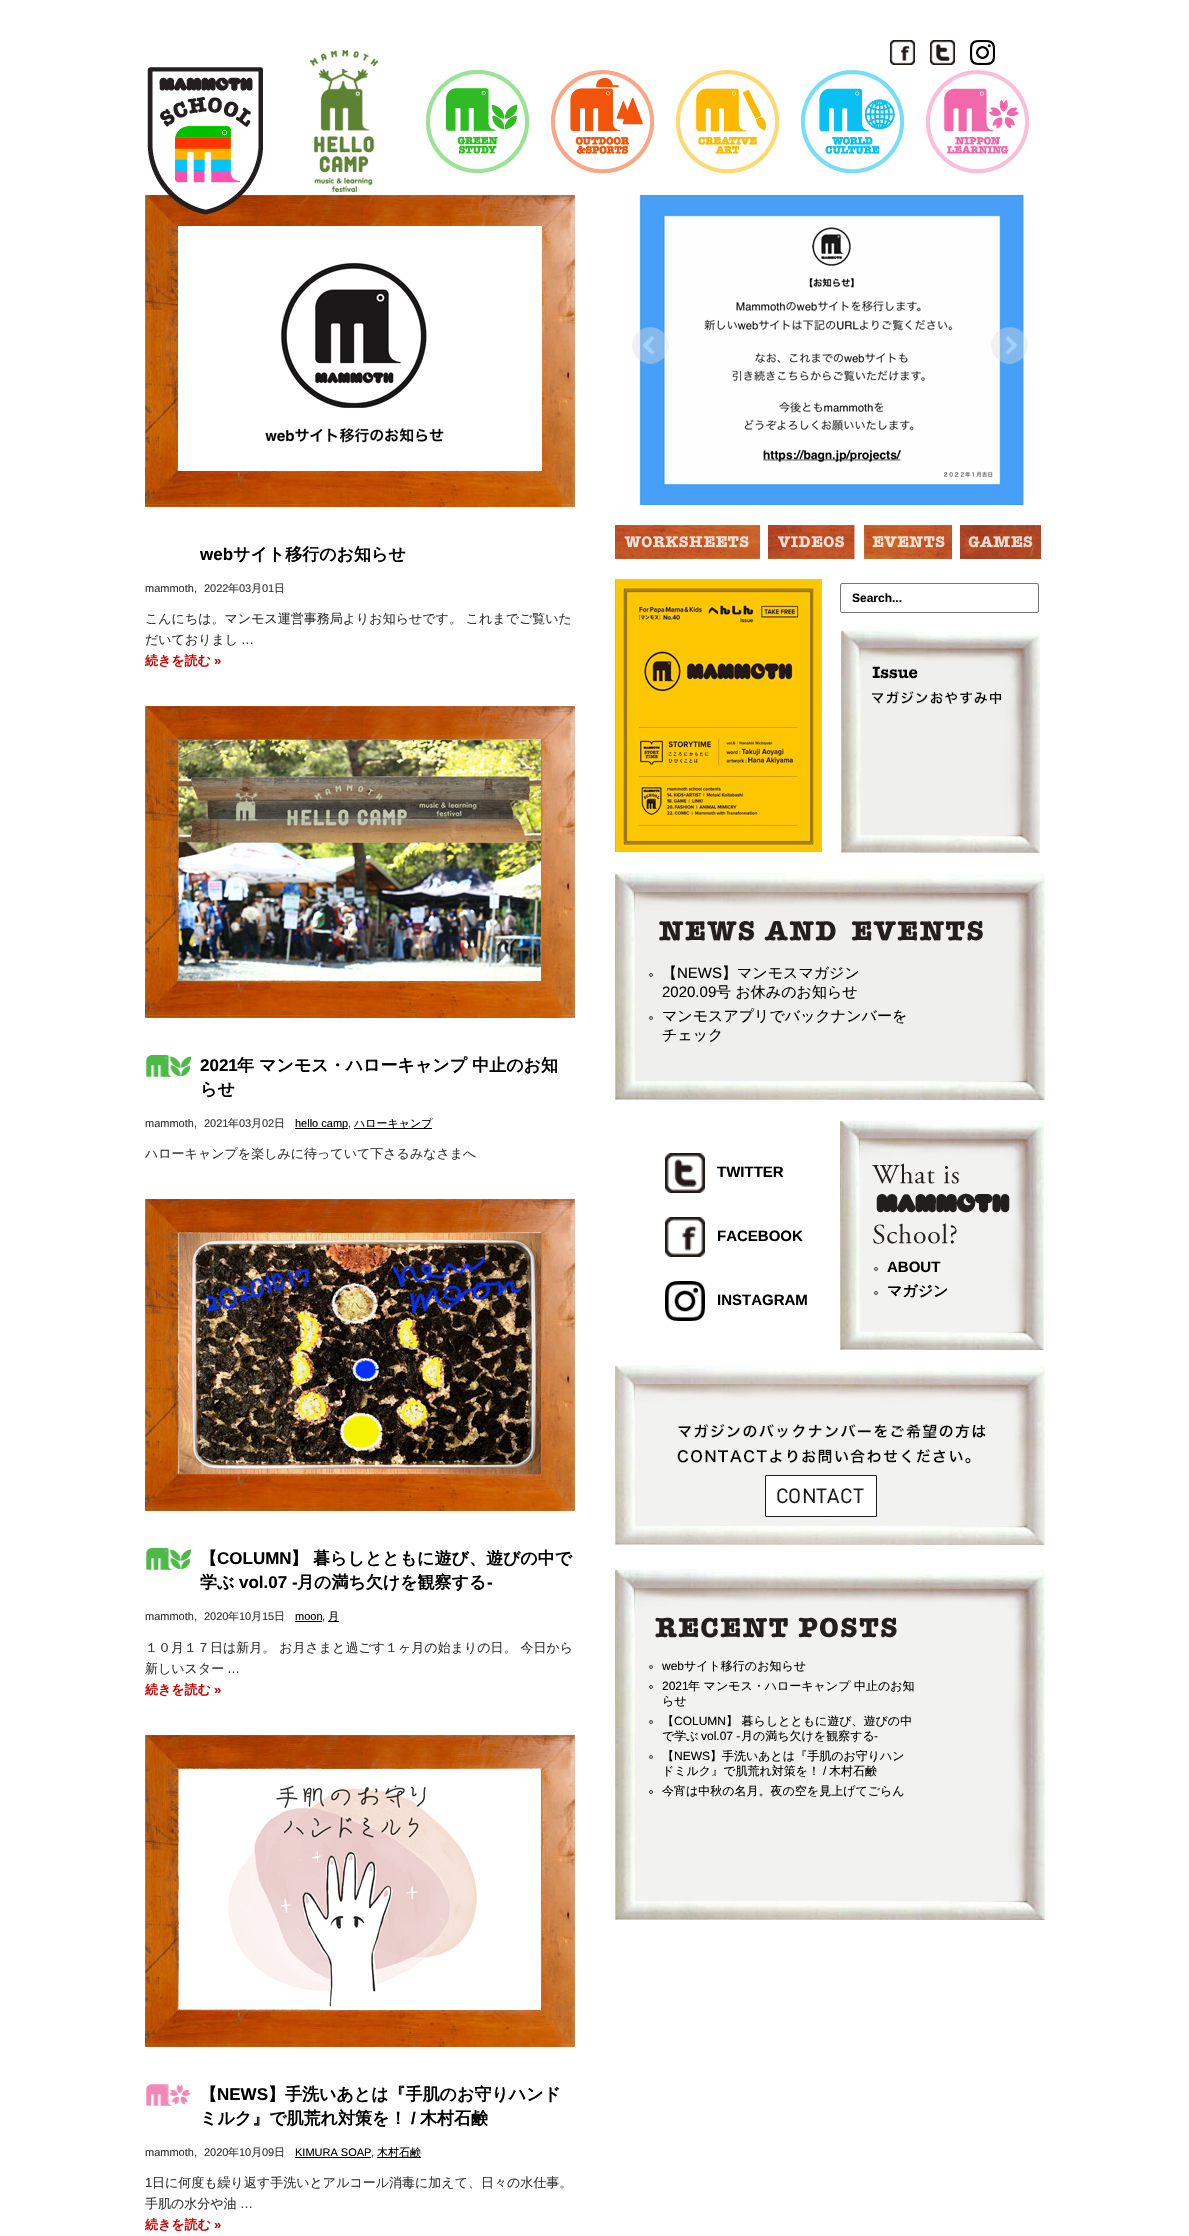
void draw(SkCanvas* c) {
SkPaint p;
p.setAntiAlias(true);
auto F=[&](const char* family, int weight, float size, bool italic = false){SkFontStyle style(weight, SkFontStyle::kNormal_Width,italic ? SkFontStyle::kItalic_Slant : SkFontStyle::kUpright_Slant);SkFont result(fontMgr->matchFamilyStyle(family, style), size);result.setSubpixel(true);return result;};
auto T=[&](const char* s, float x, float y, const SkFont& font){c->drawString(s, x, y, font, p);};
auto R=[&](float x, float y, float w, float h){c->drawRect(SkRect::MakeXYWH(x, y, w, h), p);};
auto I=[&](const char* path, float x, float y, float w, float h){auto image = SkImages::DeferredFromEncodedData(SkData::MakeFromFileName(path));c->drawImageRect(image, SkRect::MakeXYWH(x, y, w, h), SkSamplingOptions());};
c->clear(0xffffffff);
I("11.png",145,195,430,312);
I("1.png",147,67,116,148);
I("2.png",310,50,68,142);
I("3.png",890,40,25,25);
I("4.png",930,40,25,25);
I("5.png",970,40,25,25);
I("6.png",426,70,103,103);
I("7.png",551,70,103,104);
I("8.png",676,70,103,104);
I("9.png",801,70,103,104);
I("10.png",926,70,103,104);
auto f1 = F("Liberation Sans",700,17);
p.setColor(0xff000000);
T("web",200,560,f1);
auto f2 = F("WenQuanYi Zen Hei",700,17);
T("サイト移行のお知らせ",233,560,f2);
auto f3 = F("Liberation Sans",400,11);
p.setColor(0xff333333);
T("mammoth,",145,592,f3);
T("2022",204,592,f3);
auto f4 = F("WenQuanYi Zen Hei",500,11);
T("年",228,592,f4);
T("03",239,592,f3);
T("月",251,592,f4);
T("01",262,592,f3);
T("日",274,592,f4);
auto f5 = F("WenQuanYi Zen Hei",500,13);
T("こんにちは。マンモス運営事務局よりお知らせです。 これまでご覧いた",145,623,f5);
T("だいておりまし",145,644,f5);
auto f6 = F("Liberation Sans",400,13);
T("…",241,644,f6);
auto f7 = F("WenQuanYi Zen Hei",700,13);
p.setColor(0xffcc0000);
T("続きを読む",145,665,f7);
auto f8 = F("Liberation Sans",700,13);
T("»",214,665,f8);
I("12.png",145,706,430,312);
I("13.png",146,1055,45,22);
p.setColor(0xff000000);
T("2021",200,1071,f1);
T("年 マンモス・ハローキャンプ 中止のお知",237,1071,f2);
T("らせ",200,1095,f2);
p.setColor(0xff333333);
T("mammoth,",145,1127,f3);
T("2021",204,1127,f3);
T("年",228,1127,f4);
T("03",239,1127,f3);
T("月",251,1127,f4);
T("02",262,1127,f3);
T("日",274,1127,f4);
p.setColor(0xff000000);
R(295,1128,53,1);
T("hello camp",295,1127,f3);
p.setColor(0xff333333);
T(",",348,1127,f3);
p.setColor(0xff000000);
R(354,1128,78,1);
T("ハローキャンプ",354,1127,f4);
p.setColor(0xff333333);
T("ハローキャンプを楽しみに待っていて下さるみなさまへ",145,1158,f5);
I("14.png",145,1199,430,312);
I("13.png",146,1548,45,22);
p.setColor(0xff000000);
T("【",200,1564,f2);
T("COLUMN",217,1564,f1);
T("】 暮らしとともに遊び、遊びの中で",291,1564,f2);
T("学ぶ",200,1588,f2);
T("vol.07 -",239,1588,f1);
T("月の満ち欠けを観察する",297,1588,f2);
T("-",487,1588,f1);
p.setColor(0xff333333);
T("mammoth,",145,1620,f3);
T("2020",204,1620,f3);
T("年",228,1620,f4);
T("10",239,1620,f3);
T("月",251,1620,f4);
T("15",262,1620,f3);
T("日",274,1620,f4);
p.setColor(0xff000000);
T("moon",295,1620,f3);
p.setColor(0xff333333);
T(",",322,1620,f3);
p.setColor(0xff000000);
R(295,1621,27,1);
R(328,1621,11,1);
T("月",328,1620,f4);
p.setColor(0xff333333);
T("１０月１７日は新月。 お月さまと過ごす１ヶ月の始まりの日。 今日から",145,1652,f5);
T("新しいスター",145,1673,f5);
T("…",227,1673,f6);
p.setColor(0xffcc0000);
T("続きを読む",145,1694,f7);
T("»",214,1694,f8);
I("15.png",145,1735,430,312);
I("16.png",146,2084,45,22);
p.setColor(0xff000000);
T("【",200,2100,f2);
T("NEWS",217,2100,f1);
T("】手洗いあとは『手肌のお守りハンド",268,2100,f2);
T("ミルク』で肌荒れ対策を！",200,2124,f2);
T("/",411,2124,f1);
T("木村石鹸",420,2124,f2);
p.setColor(0xff333333);
T("mammoth,",145,2156,f3);
T("2020",204,2156,f3);
T("年",228,2156,f4);
T("10",239,2156,f3);
T("月",251,2156,f4);
T("09",262,2156,f3);
T("日",274,2156,f4);
p.setColor(0xff000000);
T("KIMURA SOAP",295,2156,f3);
p.setColor(0xff333333);
T(",",371,2156,f3);
p.setColor(0xff000000);
R(295,2157,76,1);
R(377,2157,44,1);
T("木村石鹸",377,2156,f4);
p.setColor(0xff333333);
T("1",145,2187,f6);
T("日に何度も繰り返す手洗いとアルコール消毒に加えて、日々の水仕事。",152,2187,f5);
T("手肌の水分や油",145,2208,f5);
T("…",240,2208,f6);
p.setColor(0xffcc0000);
T("続きを読む",145,2229,f7);
T("»",214,2229,f8);
I("17.png",639,195,385,310);
I("18.png",632,327,37,37);
I("19.png",991,327,37,37);
I("20.png",615,525,145,34);
I("21.png",768,525,87,34);
I("22.png",864,525,88,34);
I("23.png",960,525,81,34);
I("24.png",615,579,207,273);
p.setStroke(true);
p.setStrokeWidth(1);
p.setColor(0xff767676);
c->drawRoundRect(SkRect::MakeXYWH(840.5,583.5,198,29),1.5,1.5,p);
auto f9 = F("Liberation Sans",700,12);
p.setStroke(false);
p.setColor(0xff000000);
T("Search...",852,602,f9);
I("25.png",841,630,199,223);
I("26.png",615,873,430,227);
p.setStroke(true);
p.setColor(0xff333333);
c->drawCircle(651,975,1.5,p);
auto f10 = F("WenQuanYi Zen Hei",500,15);
p.setStroke(false);
p.setColor(0xff000000);
T("【",662,978,f10);
auto f11 = F("Liberation Sans",400,15);
T("NEWS",677,978,f11);
T("】マンモスマガジン",722,978,f10);
T("2020.09",662,997,f11);
T("号 お休みのお知らせ",716,997,f10);
p.setStroke(true);
p.setColor(0xff333333);
c->drawCircle(651,1018,1.5,p);
p.setStroke(false);
p.setColor(0xff000000);
T("マンモスアプリでバックナンバーを",662,1021,f10);
T("チェック",662,1040,f10);
I("27.png",665,1153,40,40);
auto f12 = F("Liberation Sans",700,15);
T("TWITTER",717,1177,f12);
I("28.png",665,1217,40,40);
T("FACEBOOK",717,1241,f12);
I("29.png",665,1281,40,40);
T("INSTAGRAM",717,1305,f12);
I("30.png",840,1120,204,230);
p.setStroke(true);
p.setColor(0xff333333);
c->drawCircle(876,1269,1.5,p);
p.setStroke(false);
p.setColor(0xff000000);
T("ABOUT",887,1272,f12);
p.setStroke(true);
p.setColor(0xff333333);
c->drawCircle(876,1293,1.5,p);
auto f13 = F("WenQuanYi Zen Hei",700,15);
p.setStroke(false);
p.setColor(0xff000000);
T("マガジン",887,1296,f13);
I("31.png",615,1365,430,180);
I("32.png",615,1569,430,351);
p.setStroke(true);
p.setColor(0xff333333);
c->drawCircle(651,1667,1.5,p);
auto f14 = F("Liberation Sans",400,12);
p.setStroke(false);
p.setColor(0xff000000);
T("web",662,1670,f14);
auto f15 = F("WenQuanYi Zen Hei",500,12);
T("サイト移行のお知らせ",684,1670,f15);
p.setStroke(true);
p.setColor(0xff333333);
c->drawCircle(651,1687,1.5,p);
p.setStroke(false);
p.setColor(0xff000000);
T("2021",662,1690,f14);
T("年 マンモス・ハローキャンプ 中止のお知",688,1690,f15);
T("らせ",662,1705,f15);
p.setStroke(true);
p.setColor(0xff333333);
c->drawCircle(651,1722,1.5,p);
p.setStroke(false);
p.setColor(0xff000000);
T("【",662,1725,f15);
T("COLUMN",674,1725,f14);
T("】 暮らしとともに遊び、遊びの中",726,1725,f15);
T("で学ぶ",662,1740,f15);
T("vol.07 -",701,1740,f14);
T("月の満ち欠けを観察する",741,1740,f15);
T("-",874,1740,f14);
p.setStroke(true);
p.setColor(0xff333333);
c->drawCircle(651,1757,1.5,p);
p.setStroke(false);
p.setColor(0xff000000);
T("【",662,1760,f15);
T("NEWS",674,1760,f14);
T("】手洗いあとは『手肌のお守りハン",710,1760,f15);
T("ドミルク』で肌荒れ対策を！",662,1775,f15);
T("/",823,1775,f14);
T("木村石鹸",829,1775,f15);
p.setStroke(true);
p.setColor(0xff333333);
c->drawCircle(651,1792,1.5,p);
p.setStroke(false);
p.setColor(0xff000000);
T("今宵は中秋の名月。夜の空を見上げてごらん",662,1795,f15);
}
